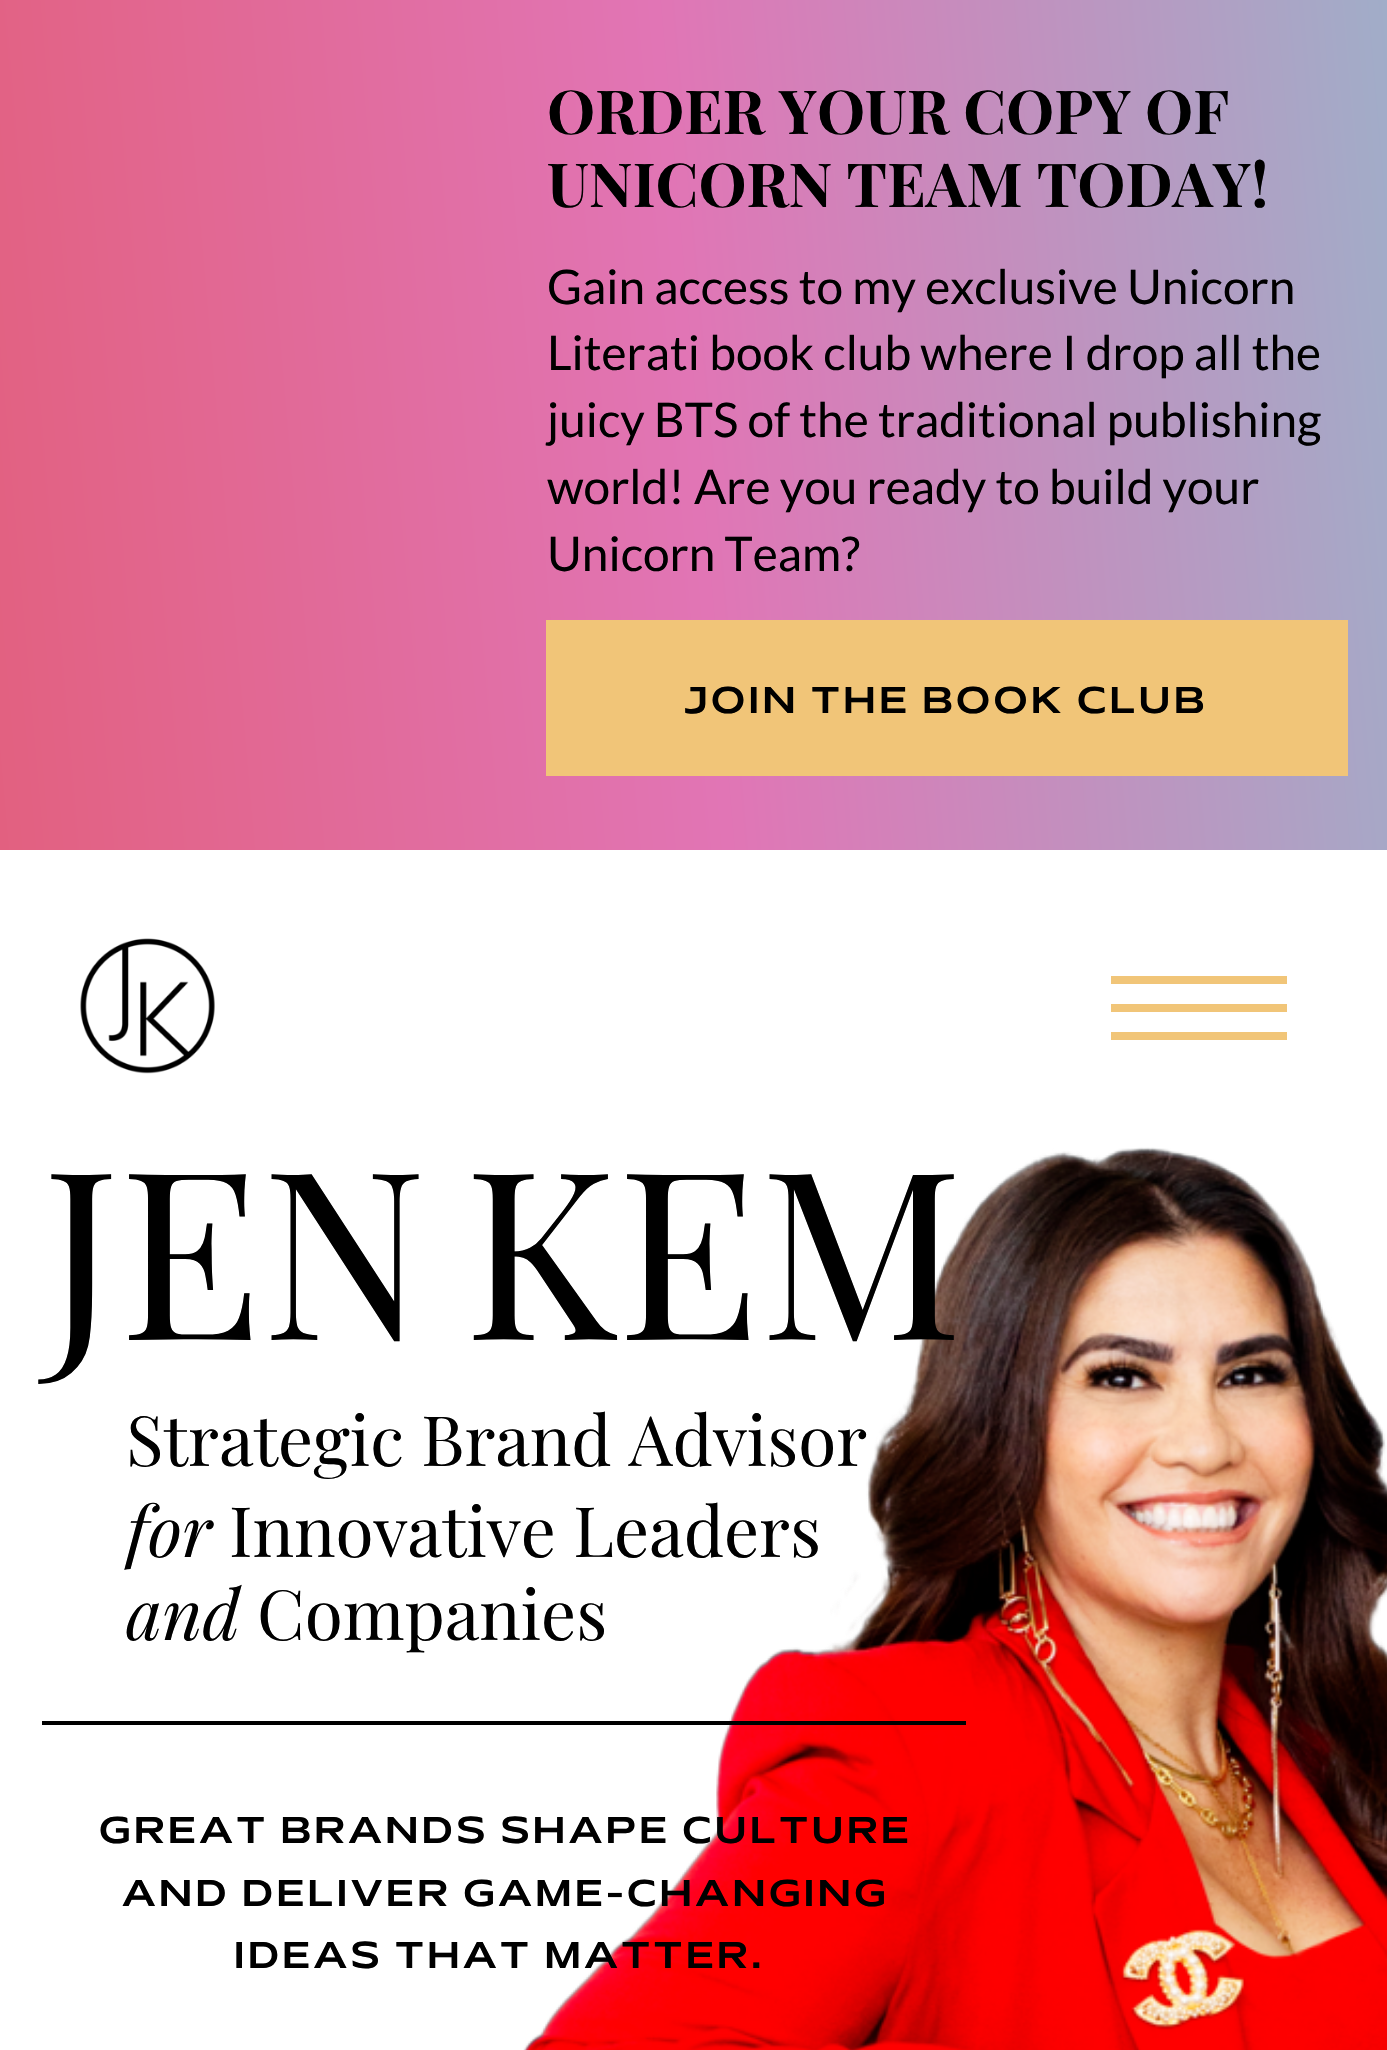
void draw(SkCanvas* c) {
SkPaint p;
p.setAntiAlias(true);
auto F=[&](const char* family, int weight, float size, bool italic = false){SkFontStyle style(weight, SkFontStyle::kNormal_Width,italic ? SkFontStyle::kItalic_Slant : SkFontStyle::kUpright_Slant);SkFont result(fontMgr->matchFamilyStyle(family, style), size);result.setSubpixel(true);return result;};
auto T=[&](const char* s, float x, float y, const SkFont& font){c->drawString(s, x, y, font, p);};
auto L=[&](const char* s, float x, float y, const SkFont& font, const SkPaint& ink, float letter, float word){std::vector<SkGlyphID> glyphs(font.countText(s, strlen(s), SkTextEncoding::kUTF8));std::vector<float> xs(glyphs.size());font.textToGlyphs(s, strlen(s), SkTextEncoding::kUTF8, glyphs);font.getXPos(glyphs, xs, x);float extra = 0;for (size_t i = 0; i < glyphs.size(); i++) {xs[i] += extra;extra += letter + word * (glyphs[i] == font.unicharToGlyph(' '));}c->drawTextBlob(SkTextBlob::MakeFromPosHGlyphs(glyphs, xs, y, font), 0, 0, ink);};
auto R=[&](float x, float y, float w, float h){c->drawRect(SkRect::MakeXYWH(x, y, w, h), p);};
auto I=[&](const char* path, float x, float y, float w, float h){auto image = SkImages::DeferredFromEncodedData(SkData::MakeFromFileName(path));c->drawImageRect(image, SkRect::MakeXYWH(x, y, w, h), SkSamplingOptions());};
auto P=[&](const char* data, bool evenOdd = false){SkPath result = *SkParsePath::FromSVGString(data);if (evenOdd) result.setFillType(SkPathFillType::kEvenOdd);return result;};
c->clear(0xffffffff);
{
const SkColor colors[] = {0xffe25c75,0xffe175b5,0xff94b8cc,0xff65a48d,0xffd5f236,0xffdb923a};
const float stops[] = {0,.2,.4,.6,.8,1};
const SkPoint ends[] = {{-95,1465}, {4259,1085}};
p.setShader(SkGradientShader::MakeLinear(ends, colors, stops, 6, SkTileMode::kClamp));
p.setAlpha(255);
}
R(0,0,1387,850);
auto f1 = F("Playfair Display",700,60.75);
p.setShader(nullptr);
p.setColor(0xff000000);
T("ORDER YOUR COPY OF",547,134,f1);
T("UNICORN TEAM TODAY!",547,207,f1);
auto f2 = F("Lato",400,47.75);
T("Gain access to my exclusive Unicorn",547,304,f2);
T("Literati book club where I drop all the",547,370,f2);
T("juicy BTS of the traditional publishing",547,437,f2);
T("world! Are you ready to build your",547,504,f2);
T("Unicorn Team?",547,571,f2);
p.setColor(0xfff1c578);
R(546,620,802,156);
auto f3 = F("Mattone",600,34.7);
p.setColor(0xff000000);
L("JOIN THE BOOK CLUB",684,713,f3,p,3.5,0);
p.setColor(0xfff1c578);
c->drawPath(P("M1111 1032h176v8h-176zm0-28h176v8h-176zm0-28h176v8h-176z"),p);
I("1.png",80,938,135,136);
I("2.png",523,1147,864,903);
auto f4 = F("Playfair Display",400,234);
p.setColor(0xff000000);
T("JEN",43,1340,f4);
I("3.png",524,1149,863,901);
T("KEM",464,1340,f4);
auto f5 = F("Playfair Display",400,69.4);
T("Strategic Brand Advisor",126,1466,f5);
auto f6 = F("Playfair Display",400,69.4,true);
T("for",126,1557,f6);
T("Innovative Leaders",229,1557,f5);
T("and",126,1640,f6);
T("Companies",257,1640,f5);
R(42,1721,924,4);
L("GREAT BRANDS SHAPE CULTURE",99,1843,f3,p,3.5,0);
L("AND DELIVER GAME-CHANGING",122,1906,f3,p,3.5,0);
L("IDEAS THAT MATTER.",234,1968,f3,p,3.5,0);
}
